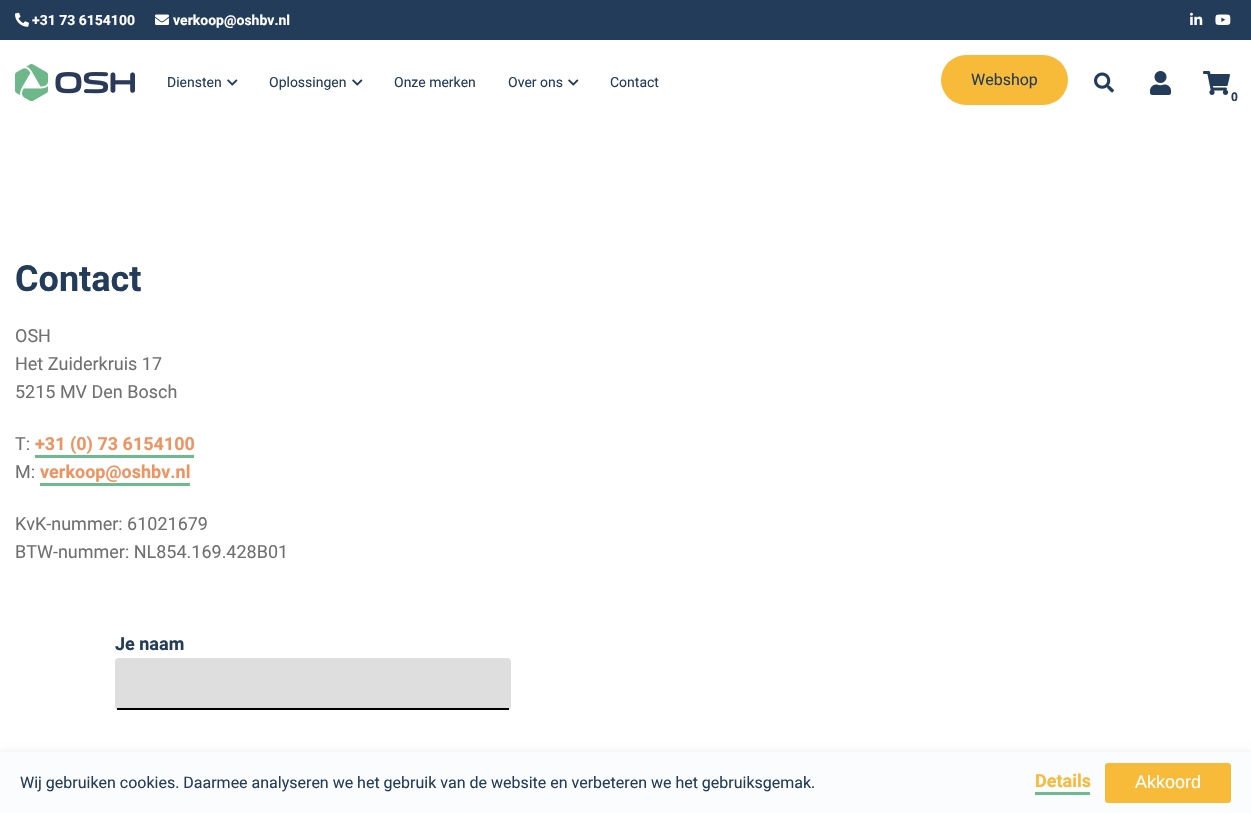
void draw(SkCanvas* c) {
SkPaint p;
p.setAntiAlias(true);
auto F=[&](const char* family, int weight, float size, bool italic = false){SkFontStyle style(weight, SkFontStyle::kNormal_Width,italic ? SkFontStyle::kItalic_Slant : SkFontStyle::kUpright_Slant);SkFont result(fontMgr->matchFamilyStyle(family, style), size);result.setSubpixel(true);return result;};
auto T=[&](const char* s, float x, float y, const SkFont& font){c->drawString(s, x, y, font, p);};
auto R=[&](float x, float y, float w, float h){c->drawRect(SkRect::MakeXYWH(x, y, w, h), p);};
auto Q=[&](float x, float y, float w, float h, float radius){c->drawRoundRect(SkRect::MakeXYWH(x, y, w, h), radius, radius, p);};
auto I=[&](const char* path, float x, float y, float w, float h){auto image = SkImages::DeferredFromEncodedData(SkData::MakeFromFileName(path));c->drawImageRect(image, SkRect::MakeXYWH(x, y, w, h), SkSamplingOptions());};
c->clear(0xffffffff);
p.setColor(0xff233c5a);
R(0,0,1251,40);
I("1.png",15,12,14,15);
auto f1 = F("Roboto",700,14);
p.setColor(0xffffffff);
T("+31 73 6154100",32,25,f1);
I("2.png",155,14,14,11);
T("verkoop@oshbv.nl",173,25,f1);
I("3.png",1190,12,13,13);
I("4.png",1215,14,16,11);
I("5.png",15,64,120,37);
auto f2 = F("Roboto",400,14);
p.setColor(0xff233c5a);
T("Diensten",167,87,f2);
I("6.png",227,79,11,7);
T("Oplossingen",269,87,f2);
I("6.png",352,79,11,7);
T("Onze merken",394,87,f2);
T("Over ons",508,87,f2);
I("6.png",568,79,11,7);
T("Contact",610,87,f2);
p.setColor(0xfff7ba39);
Q(941,55,127,50,25);
auto f3 = F("Roboto",400,16);
p.setColor(0xff233c5a);
T("Webshop",971,85,f3);
I("7.png",1094,72,20,21);
I("8.png",1150,71,21,24);
I("9.png",1203,71,27,24);
auto f4 = F("Roboto",700,12);
T("0",1231,101,f4);
auto f5 = F("Roboto",700,36);
T("Contact",15,291,f5);
auto f6 = F("Roboto",400,18);
p.setColor(0xff707070);
T("OSH",15,342,f6);
T("Het Zuiderkruis 17",15,370,f6);
T("5215 MV Den Bosch",15,398,f6);
T("T:",15,450,f6);
auto f7 = F("Roboto",700,18);
p.setColor(0xffee9463);
T("+31 (0) 73 6154100",35,450,f7);
p.setColor(0xff6eba8f);
R(35,455,159,3);
p.setColor(0xff707070);
T("M:",15,478,f6);
p.setColor(0xffee9463);
T("verkoop@oshbv.nl",40,478,f7);
p.setColor(0xff6eba8f);
R(40,483,150,3);
p.setColor(0xff707070);
T("KvK-nummer: 61021679",15,530,f6);
T("BTW-nummer: NL854.169.428B01",15,558,f6);
p.setColor(0xff233c5a);
T("Je naam",115,650,f7);
p.setColor(0xffdedede);
Q(115,658,396,52,4);
p.setColor(0xff000000);
R(117,708,392,2);
p.setColor(0x0f000000);
p.setMaskFilter(SkMaskFilter::MakeBlur(kNormal_SkBlurStyle, 3));
c->drawRect(SkRect::MakeXYWH(-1,751,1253,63),p);
p.setMaskFilter(nullptr);
p.setColor(0xfffbfcfd);
R(0,752,1251,61);
p.setColor(0xff233c5a);
T("Wij gebruiken cookies. Daarmee analyseren we het gebruik van de website en verbeteren we het gebruiksgemak.",20,788,f3);
p.setColor(0xfff7ba39);
T("Details",1035,787,f7);
p.setColor(0xff6eba8f);
R(1035,792,55,3);
p.setColor(0xfff7ba39);
Q(1105,763,126,40,3);
auto f8 = F("Liberation Sans",400,18);
p.setColor(0xffffffff);
T("Akkoord",1135,788,f8);
}
